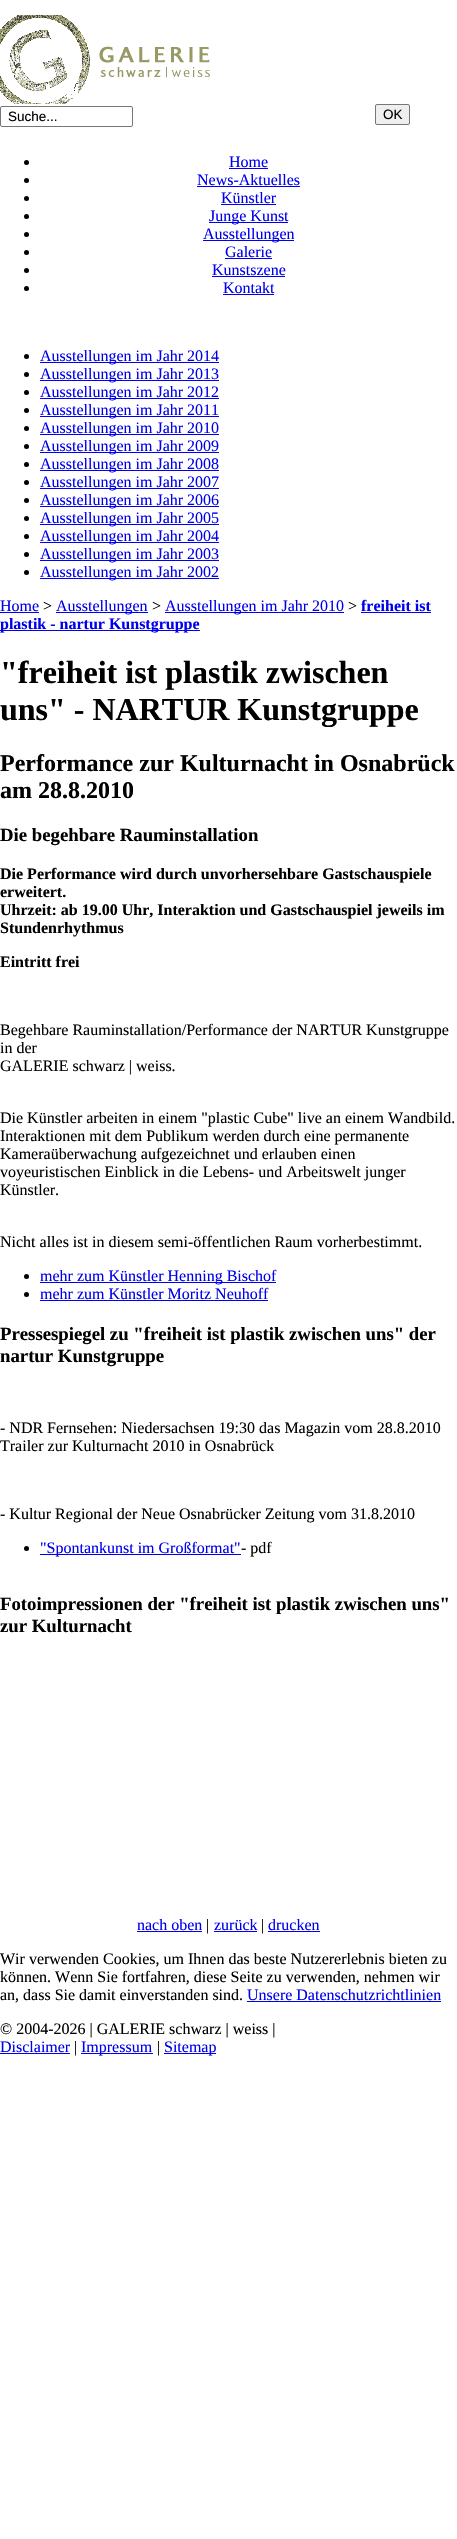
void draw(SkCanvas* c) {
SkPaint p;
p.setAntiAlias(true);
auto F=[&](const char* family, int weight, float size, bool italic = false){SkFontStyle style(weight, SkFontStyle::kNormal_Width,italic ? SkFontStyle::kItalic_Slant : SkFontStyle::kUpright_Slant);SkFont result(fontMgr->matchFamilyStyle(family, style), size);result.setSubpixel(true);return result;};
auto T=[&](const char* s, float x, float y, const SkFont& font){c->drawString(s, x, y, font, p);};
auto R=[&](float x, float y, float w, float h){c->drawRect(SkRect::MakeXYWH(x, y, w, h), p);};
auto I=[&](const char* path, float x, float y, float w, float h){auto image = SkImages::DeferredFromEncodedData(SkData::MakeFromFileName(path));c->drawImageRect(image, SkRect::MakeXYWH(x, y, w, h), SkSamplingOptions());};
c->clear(0xffffffff);
I("1.png",0,15,210,89);
p.setStroke(true);
p.setStrokeWidth(1);
p.setColor(0xff767676);
c->drawRoundRect(SkRect::MakeXYWH(.5,106.5,132,20),1.5,1.5,p);
auto f1 = F("Liberation Sans",400,13.5);
p.setStroke(false);
p.setColor(0xff000000);
T("Suche...",8,121,f1);
p.setColor(0xffefefef);
c->drawRoundRect(SkRect::MakeXYWH(375.5,104.5,34,20),1.5,1.5,p);
p.setStroke(true);
p.setColor(0xff767676);
c->drawRoundRect(SkRect::MakeXYWH(375.5,104.5,34,20),1.5,1.5,p);
p.setStroke(false);
p.setColor(0xff000000);
T("OK",383,119,f1);
c->drawCircle(26.5,162.5,2.5,p);
auto f2 = F("Liberation Serif",400,16);
p.setColor(0xff0000ee);
T("Home",229,167,f2);
R(229,168,39,1);
p.setColor(0xff000000);
c->drawCircle(26.5,180.5,2.5,p);
p.setColor(0xff0000ee);
T("News-Aktuelles",197,185,f2);
R(197,186,103,1);
p.setColor(0xff000000);
c->drawCircle(26.5,198.5,2.5,p);
p.setColor(0xff0000ee);
T("Künstler",221,203,f2);
R(221,204,55,1);
p.setColor(0xff000000);
c->drawCircle(26.5,216.5,2.5,p);
p.setColor(0xff0000ee);
R(209,222,79,1);
T("Junge Kunst",209,221,f2);
p.setColor(0xff000000);
c->drawCircle(26.5,234.5,2.5,p);
p.setColor(0xff0000ee);
R(203,240,91,1);
T("Ausstellungen",203,239,f2);
p.setColor(0xff000000);
c->drawCircle(26.5,252.5,2.5,p);
p.setColor(0xff0000ee);
T("Galerie",225,257,f2);
R(225,258,47,1);
p.setColor(0xff000000);
c->drawCircle(26.5,270.5,2.5,p);
p.setColor(0xff0000ee);
T("Kunstszene",212,275,f2);
R(212,276,73,1);
p.setColor(0xff000000);
c->drawCircle(26.5,288.5,2.5,p);
p.setColor(0xff0000ee);
T("Kontakt",223,293,f2);
R(223,294,51,1);
p.setColor(0xff000000);
c->drawCircle(26.5,356.5,2.5,p);
p.setColor(0xff0000ee);
R(40,362,179,1);
T("Ausstellungen im Jahr 2014",40,361,f2);
p.setColor(0xff000000);
c->drawCircle(26.5,374.5,2.5,p);
p.setColor(0xff0000ee);
R(40,380,179,1);
T("Ausstellungen im Jahr 2013",40,379,f2);
p.setColor(0xff000000);
c->drawCircle(26.5,392.5,2.5,p);
p.setColor(0xff0000ee);
R(40,398,179,1);
T("Ausstellungen im Jahr 2012",40,397,f2);
p.setColor(0xff000000);
c->drawCircle(26.5,410.5,2.5,p);
p.setColor(0xff0000ee);
R(40,416,179,1);
T("Ausstellungen im Jahr 2011",40,415,f2);
p.setColor(0xff000000);
c->drawCircle(26.5,428.5,2.5,p);
p.setColor(0xff0000ee);
R(40,434,179,1);
T("Ausstellungen im Jahr 2010",40,433,f2);
p.setColor(0xff000000);
c->drawCircle(26.5,446.5,2.5,p);
p.setColor(0xff0000ee);
R(40,452,179,1);
T("Ausstellungen im Jahr 2009",40,451,f2);
p.setColor(0xff000000);
c->drawCircle(26.5,464.5,2.5,p);
p.setColor(0xff0000ee);
R(40,470,179,1);
T("Ausstellungen im Jahr 2008",40,469,f2);
p.setColor(0xff000000);
c->drawCircle(26.5,482.5,2.5,p);
p.setColor(0xff0000ee);
R(40,488,179,1);
T("Ausstellungen im Jahr 2007",40,487,f2);
p.setColor(0xff000000);
c->drawCircle(26.5,500.5,2.5,p);
p.setColor(0xff0000ee);
R(40,506,179,1);
T("Ausstellungen im Jahr 2006",40,505,f2);
p.setColor(0xff000000);
c->drawCircle(26.5,518.5,2.5,p);
p.setColor(0xff0000ee);
R(40,524,179,1);
T("Ausstellungen im Jahr 2005",40,523,f2);
p.setColor(0xff000000);
c->drawCircle(26.5,536.5,2.5,p);
p.setColor(0xff0000ee);
R(40,542,179,1);
T("Ausstellungen im Jahr 2004",40,541,f2);
p.setColor(0xff000000);
c->drawCircle(26.5,554.5,2.5,p);
p.setColor(0xff0000ee);
R(40,560,179,1);
T("Ausstellungen im Jahr 2003",40,559,f2);
p.setColor(0xff000000);
c->drawCircle(26.5,572.5,2.5,p);
p.setColor(0xff0000ee);
R(40,578,179,1);
T("Ausstellungen im Jahr 2002",40,577,f2);
T("Home",0,611,f2);
R(0,612,39,1);
p.setColor(0xff000000);
T(">",43,611,f2);
p.setColor(0xff0000ee);
R(56,612,92,1);
T("Ausstellungen",56,611,f2);
p.setColor(0xff000000);
T(">",152,611,f2);
p.setColor(0xff0000ee);
R(165,612,179,1);
T("Ausstellungen im Jahr 2010",165,611,f2);
p.setColor(0xff000000);
T(">",348,611,f2);
auto f3 = F("Liberation Serif",700,16);
p.setColor(0xff0000ee);
T("freiheit ist",361,611,f3);
R(361,612,70,1);
R(0,630,200,1);
T("plastik - nartur Kunstgruppe",0,629,f3);
auto f4 = F("Liberation Serif",700,32);
p.setColor(0xff000000);
T("\"freiheit ist plastik zwischen",0,683,f4);
T("uns\" - NARTUR Kunstgruppe",0,720,f4);
auto f5 = F("Liberation Serif",700,24);
T("Performance zur Kulturnacht in Osnabrück",0,771,f5);
T("am 28.8.2010",0,798,f5);
auto f6 = F("Liberation Serif",700,18.75);
T("Die begehbare Rauminstallation",0,841,f6);
T("Die Performance wird durch unvorhersehbare Gastschauspiele",0,879,f3);
T("erweitert.",0,897,f3);
T("Uhrzeit: ab 19.00 Uhr, Interaktion und Gastschauspiel jeweils im",0,915,f3);
T("Stundenrhythmus",0,933,f3);
T("Eintritt frei",0,967,f3);
T("Begehbare Rauminstallation/Performance der NARTUR Kunstgruppe",0,1035,f2);
T("in der",0,1053,f2);
T("GALERIE schwarz | weiss.",0,1071,f2);
T("Die Künstler arbeiten in einem \"plastic Cube\" live an einem Wandbild.",0,1123,f2);
T("Interaktionen mit dem Publikum werden durch eine permanente",0,1141,f2);
T("Kameraüberwachung aufgezeichnet und erlauben einen",0,1159,f2);
T("voyeuristischen Einblick in die Lebens- und Arbeitswelt junger",0,1177,f2);
T("Künstler.",0,1195,f2);
T("Nicht alles ist in diesem semi-öffentlichen Raum vorherbestimmt.",0,1247,f2);
c->drawCircle(26.5,1276.5,2.5,p);
p.setColor(0xff0000ee);
R(40,1282,236,1);
T("mehr zum Künstler Henning Bischof",40,1281,f2);
p.setColor(0xff000000);
c->drawCircle(26.5,1294.5,2.5,p);
p.setColor(0xff0000ee);
T("mehr zum Künstler Moritz Neuhoff",40,1299,f2);
R(40,1300,228,1);
p.setColor(0xff000000);
T("Pressespiegel zu \"freiheit ist plastik zwischen uns\" der",0,1340,f6);
T("nartur Kunstgruppe",0,1362,f6);
T("- NDR Fernsehen: Niedersachsen 19:30 das Magazin vom 28.8.2010",0,1433,f2);
T("Trailer zur Kulturnacht 2010 in Osnabrück",0,1451,f2);
T("- Kultur Regional der Neue Osnabrücker Zeitung vom 31.8.2010",0,1519,f2);
c->drawCircle(26.5,1548.5,2.5,p);
p.setColor(0xff0000ee);
R(40,1554,201,1);
T("\"Spontankunst im Großformat\"",40,1553,f2);
p.setColor(0xff000000);
T("- pdf",241,1553,f2);
T("Fotoimpressionen der \"freiheit ist plastik zwischen uns\"",0,1610,f6);
T("zur Kulturnacht",0,1632,f6);
p.setColor(0xff0000ee);
T("nach oben",137,1930,f2);
R(137,1931,65,1);
p.setColor(0xff000000);
T("|",206,1930,f2);
p.setColor(0xff0000ee);
T("zurück",214,1930,f2);
R(214,1931,43,1);
p.setColor(0xff000000);
T("|",261,1930,f2);
p.setColor(0xff0000ee);
T("drucken",268,1930,f2);
R(268,1931,52,1);
p.setColor(0xff000000);
T("Wir verwenden Cookies, um Ihnen das beste Nutzererlebnis bieten zu",0,1964,f2);
T("können. Wenn Sie fortfahren, diese Seite zu verwenden, nehmen wir",0,1982,f2);
T("an, dass Sie damit einverstanden sind.",0,2000,f2);
p.setColor(0xff0000ee);
T("Unsere Datenschutzrichtlinien",247,2000,f2);
R(247,2001,194,1);
p.setColor(0xff000000);
T("© 2004-2026 | GALERIE schwarz | weiss |",0,2034,f2);
p.setColor(0xff0000ee);
T("Disclaimer",0,2052,f2);
R(0,2053,70,1);
p.setColor(0xff000000);
T("|",74,2052,f2);
p.setColor(0xff0000ee);
R(81,2053,72,1);
T("Impressum",81,2052,f2);
p.setColor(0xff000000);
T("|",157,2052,f2);
p.setColor(0xff0000ee);
R(164,2053,52,1);
T("Sitemap",164,2052,f2);
}
